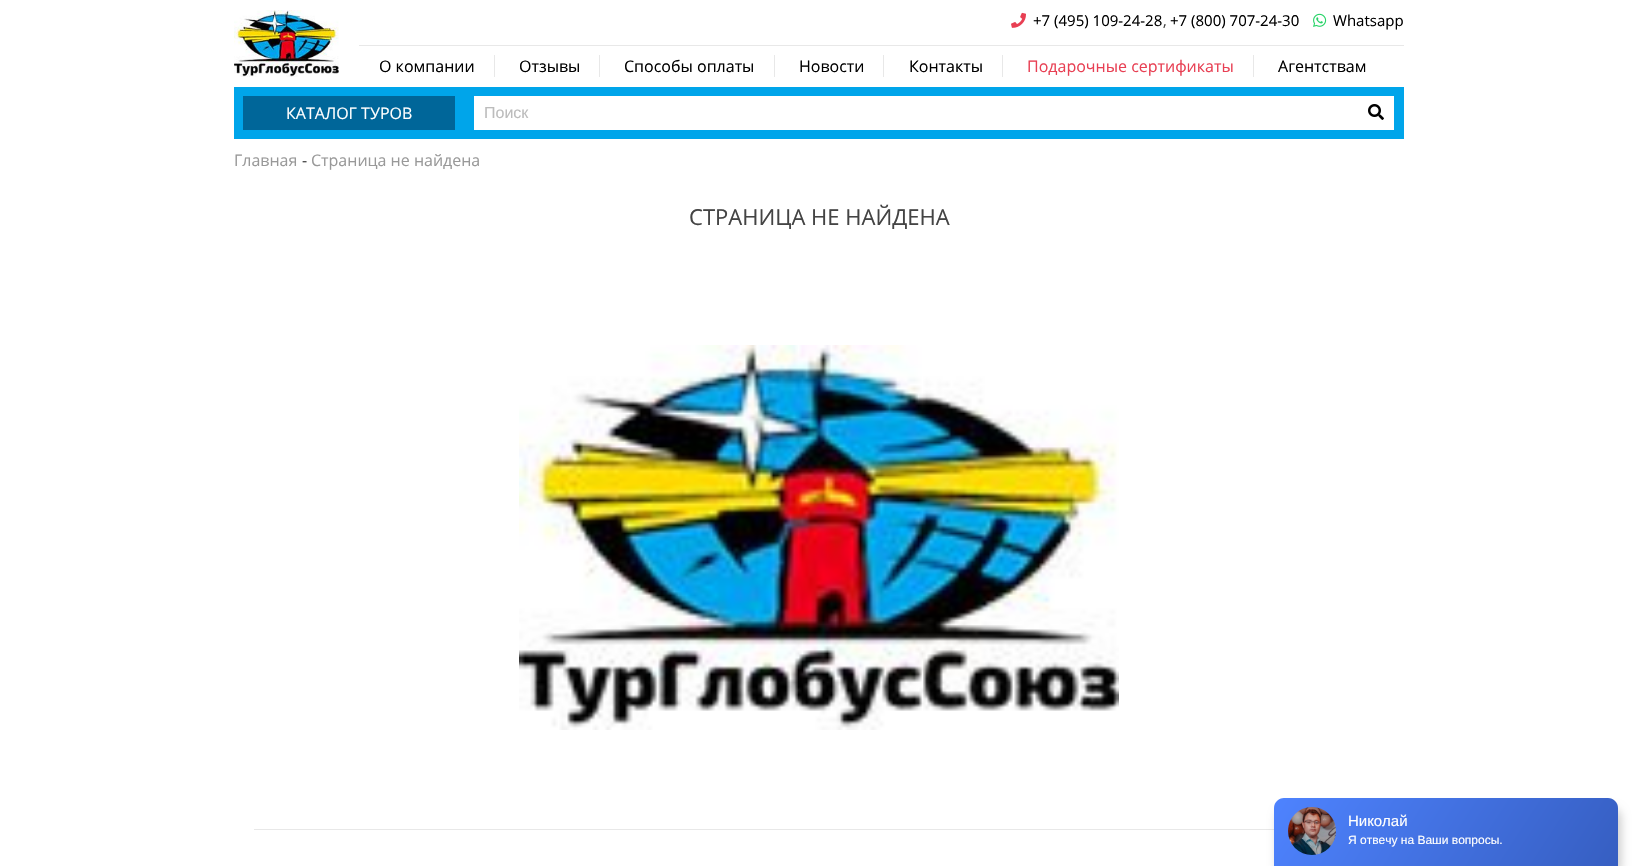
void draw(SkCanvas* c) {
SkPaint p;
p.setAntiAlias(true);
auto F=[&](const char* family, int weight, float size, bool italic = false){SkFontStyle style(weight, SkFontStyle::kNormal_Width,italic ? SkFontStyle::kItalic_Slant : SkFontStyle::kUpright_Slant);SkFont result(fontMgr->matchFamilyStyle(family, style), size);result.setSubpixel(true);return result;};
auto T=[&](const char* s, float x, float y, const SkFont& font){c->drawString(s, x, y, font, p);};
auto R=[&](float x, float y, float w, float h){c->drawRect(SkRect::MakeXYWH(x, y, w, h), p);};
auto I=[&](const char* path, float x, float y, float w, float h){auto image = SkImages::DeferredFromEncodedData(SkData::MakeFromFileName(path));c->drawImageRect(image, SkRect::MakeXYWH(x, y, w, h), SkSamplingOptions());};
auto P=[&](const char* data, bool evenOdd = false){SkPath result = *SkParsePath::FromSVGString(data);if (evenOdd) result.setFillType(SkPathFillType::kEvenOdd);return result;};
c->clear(0xffffffff);
I("1.png",234,10,105,67);
I("2.png",1011,12,15,16);
auto f1 = F("Open Sans",400,15);
p.setColor(0xff000000);
T("+7 (495) 109-24-28",1033,26,f1);
p.setColor(0xff444444);
T(",",1163,26,f1);
p.setColor(0xff000000);
T("+7 (800) 707-24-30",1170,26,f1);
I("3.png",1313,13,14,14);
T("Whatsapp",1333,26,f1);
p.setColor(0xffe8e8e8);
R(359,45,1045,1);
auto f2 = F("Open Sans",400,16);
p.setColor(0xff000000);
T("О компании",379,72,f2);
p.setColor(0xffe8e8e8);
R(494,55,1,22);
p.setColor(0xff000000);
T("Отзывы",519,72,f2);
p.setColor(0xffe8e8e8);
R(599,55,1,22);
p.setColor(0xff000000);
T("Способы оплаты",624,72,f2);
p.setColor(0xffe8e8e8);
R(774,55,1,22);
p.setColor(0xff000000);
T("Новости",799,72,f2);
p.setColor(0xffe8e8e8);
R(883,55,1,22);
p.setColor(0xff000000);
T("Контакты",909,72,f2);
p.setColor(0xffe8e8e8);
R(1002,55,1,22);
p.setColor(0xffe83f53);
T("Подарочные сертификаты",1027,72,f2);
p.setColor(0xffe8e8e8);
R(1253,55,1,22);
p.setColor(0xff000000);
T("Агентствам",1278,72,f2);
p.setColor(0xff00a5ea);
R(464,87,940,52);
p.setColor(0xff006699);
c->drawRect(SkRect::MakeXYWH(238.5,91.5,221,43),p);
p.setStroke(true);
p.setStrokeWidth(9);
p.setColor(0xff00a5ea);
c->drawRect(SkRect::MakeXYWH(238.5,91.5,221,43),p);
p.setStroke(false);
p.setColor(0xffffffff);
T("КАТАЛОГ ТУРОВ",286,119,f2);
R(474,96,920,34);
auto f3 = F("Liberation Sans",400,16);
p.setColor(0xffbcbcbc);
T("Поиск",484,118,f3);
I("4.png",1368,104,16,16);
p.setColor(0xff999999);
T("Главная",234,166,f2);
p.setColor(0xff444444);
T("-",302,166,f2);
p.setColor(0xff999999);
T("Страница не найдена",311,166,f2);
auto f4 = F("Open Sans",400,22);
p.setColor(0xff444444);
T("СТРАНИЦА НЕ НАЙДЕНА",689,225,f4);
I("5.png",519,345,600,385);
p.setColor(0xffe8e8e8);
R(254,829,1020,1);
p.setColor(0x33000000);
p.setMaskFilter(SkMaskFilter::MakeBlur(kNormal_SkBlurStyle, 5));
c->drawRoundRect(SkRect::MakeXYWH(1277,808,344,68),10,10,p);
p.setMaskFilter(nullptr);
{
const SkColor colors[] = {0xff365ec1,0xff4e83ff};
const float stops[] = {0,1};
const SkPoint ends[] = {{1583,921}, {1309,743}};
p.setShader(SkGradientShader::MakeLinear(ends, colors, stops, 2, SkTileMode::kClamp));
p.setAlpha(255);
}
c->drawPath(P("M1284 798h324c5.5 0 10 4.5 10 10v58h-344v-58c0-5.5 4.5-10 10-10z"),p);
I("6.png",1288,807,48,48);
auto f5 = F("Liberation Sans",400,15);
p.setShader(nullptr);
p.setColor(0xffffffff);
T("Николай",1348,826,f5);
auto f6 = F("Liberation Sans",400,12);
T("Я отвечу на Ваши вопросы.",1348,844,f6);
}
